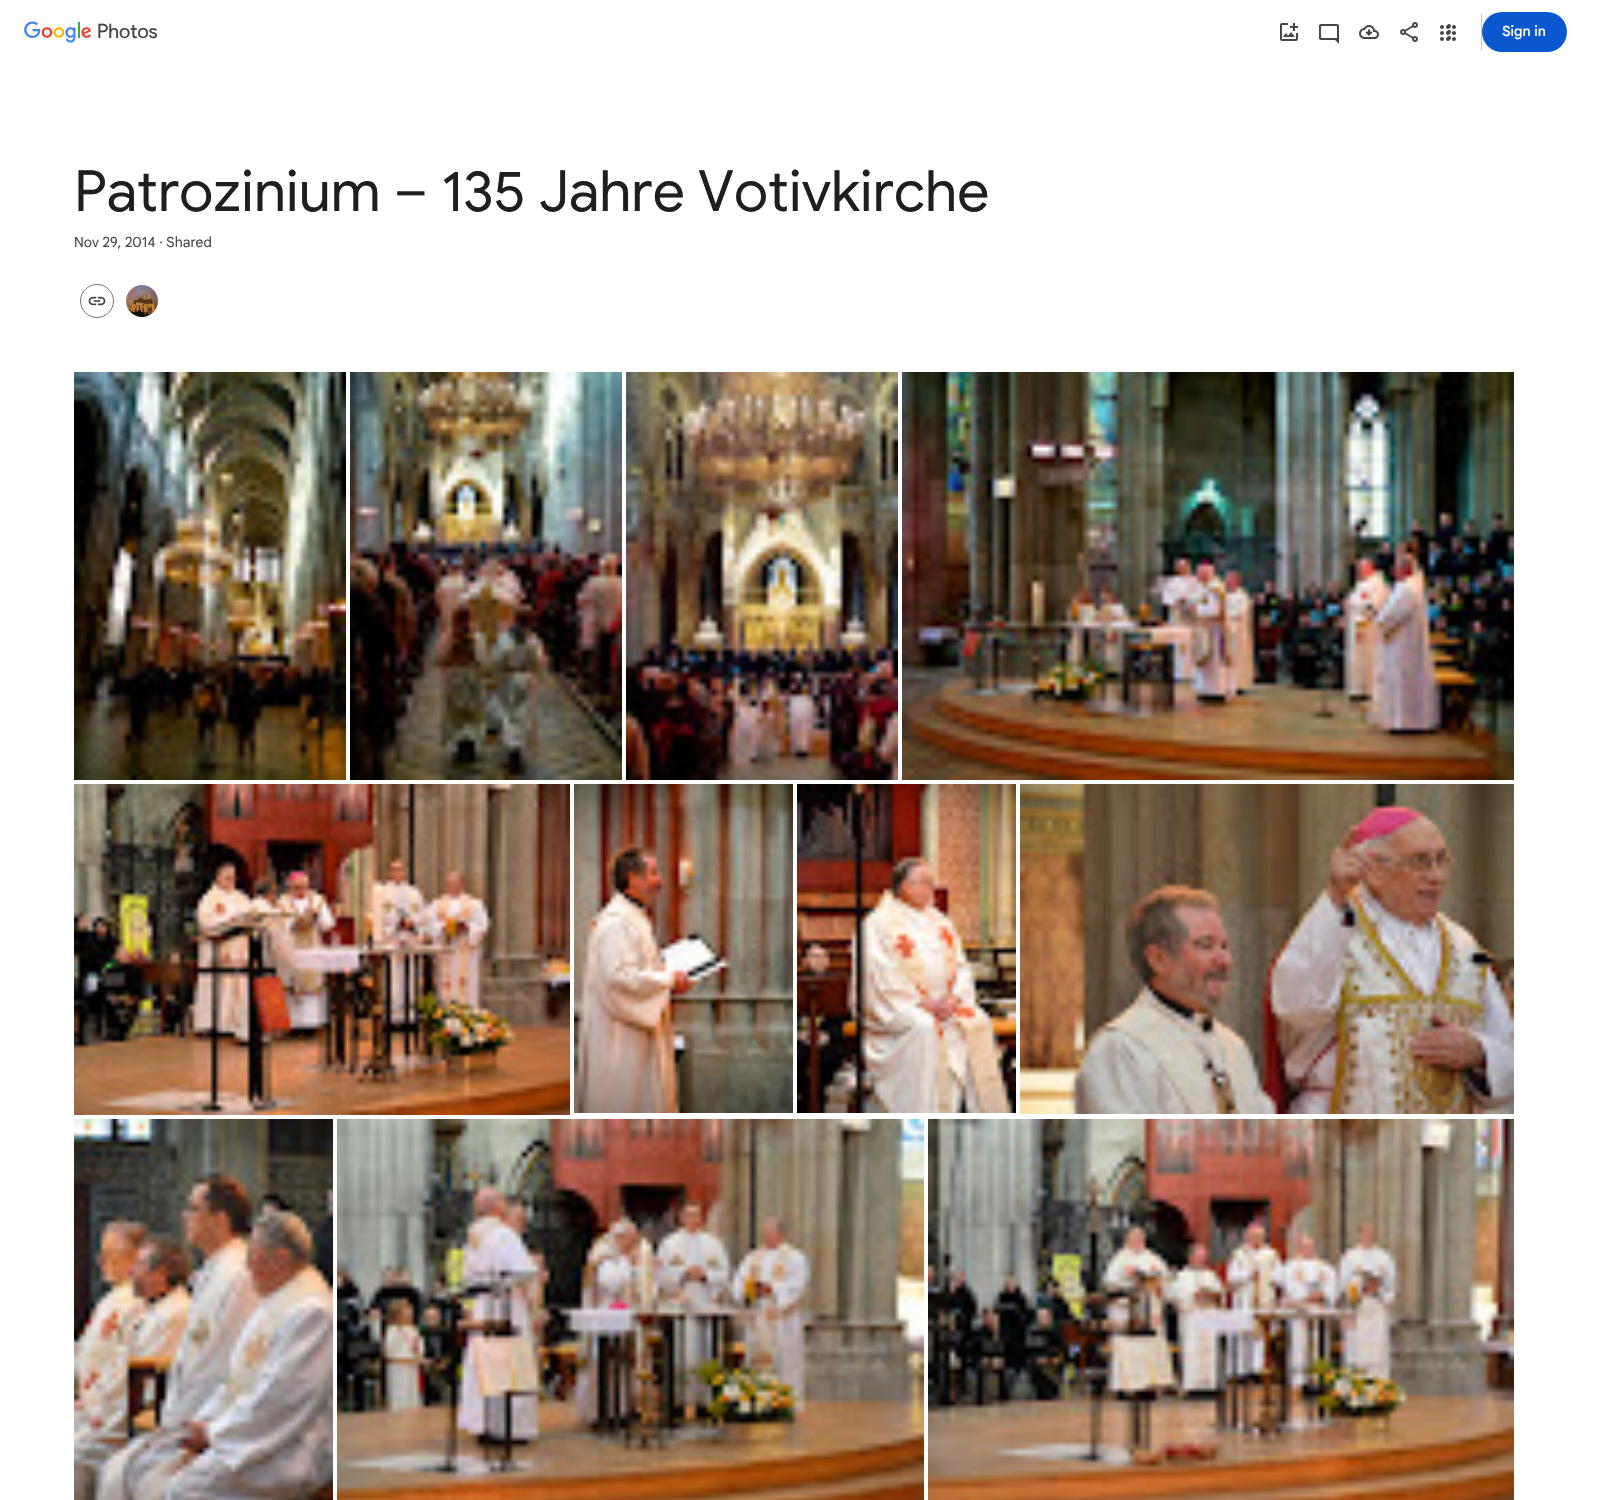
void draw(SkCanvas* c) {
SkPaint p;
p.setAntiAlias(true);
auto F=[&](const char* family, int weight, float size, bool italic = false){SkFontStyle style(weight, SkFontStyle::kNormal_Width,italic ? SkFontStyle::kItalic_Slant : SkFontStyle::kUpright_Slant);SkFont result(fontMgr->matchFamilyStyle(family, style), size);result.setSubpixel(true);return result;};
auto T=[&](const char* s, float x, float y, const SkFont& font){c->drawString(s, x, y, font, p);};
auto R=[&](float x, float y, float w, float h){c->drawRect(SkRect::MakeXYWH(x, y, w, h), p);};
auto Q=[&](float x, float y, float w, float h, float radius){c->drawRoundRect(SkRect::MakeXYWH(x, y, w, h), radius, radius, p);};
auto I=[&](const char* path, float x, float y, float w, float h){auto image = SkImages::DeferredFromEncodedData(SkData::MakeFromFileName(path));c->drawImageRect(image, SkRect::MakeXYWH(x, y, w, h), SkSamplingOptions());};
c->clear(0xffffffff);
I("1.png",24,21,68,22);
auto f1 = F("Product Sans",400,20);
p.setColor(0xff444746);
T("Photos",97,38,f1);
I("2.png",1280,23,18,18);
I("3.png",1319,24,20,20);
I("4.png",1359,25,20,14);
I("5.png",1400,22,18,20);
I("6.png",1447,24,4,16);
p.setColor(0xffc4c7c5);
R(1481,14,1,36);
auto f2 = F("Google Sans",400,57);
p.setColor(0xff1f1f1f);
T("Patrozinium – 135 Jahre Votivkirche",74,211,f2);
auto f3 = F("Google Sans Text",400,14);
p.setColor(0xff444746);
T("Nov 29, 2014 · Shared",74,247,f3);
p.setStroke(true);
p.setStrokeWidth(1);
p.setColor(0xff747775);
c->drawCircle(97,301,16.5,p);
I("7.png",88,296,18,10);
I("8.png",126,285,32,32);
I("9.png",74,372,272,408);
I("10.png",350,372,272,408);
I("11.png",626,372,272,408);
I("12.png",902,372,612,408);
I("13.png",74,784,496,331);
I("14.png",574,784,219,329);
I("15.png",797,784,219,329);
I("16.png",1020,784,494,330);
I("17.png",74,1119,259,381);
I("18.png",337,1119,587,381);
I("19.png",928,1119,586,381);
I("20.png",1440,25,16,16);
p.setStroke(false);
p.setColor(0xff0b57d0);
Q(1482,12,85,40,20);
auto f4 = F("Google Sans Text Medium",500,14);
p.setColor(0xffffffff);
T("Sign in",1502,36,f4);
}
